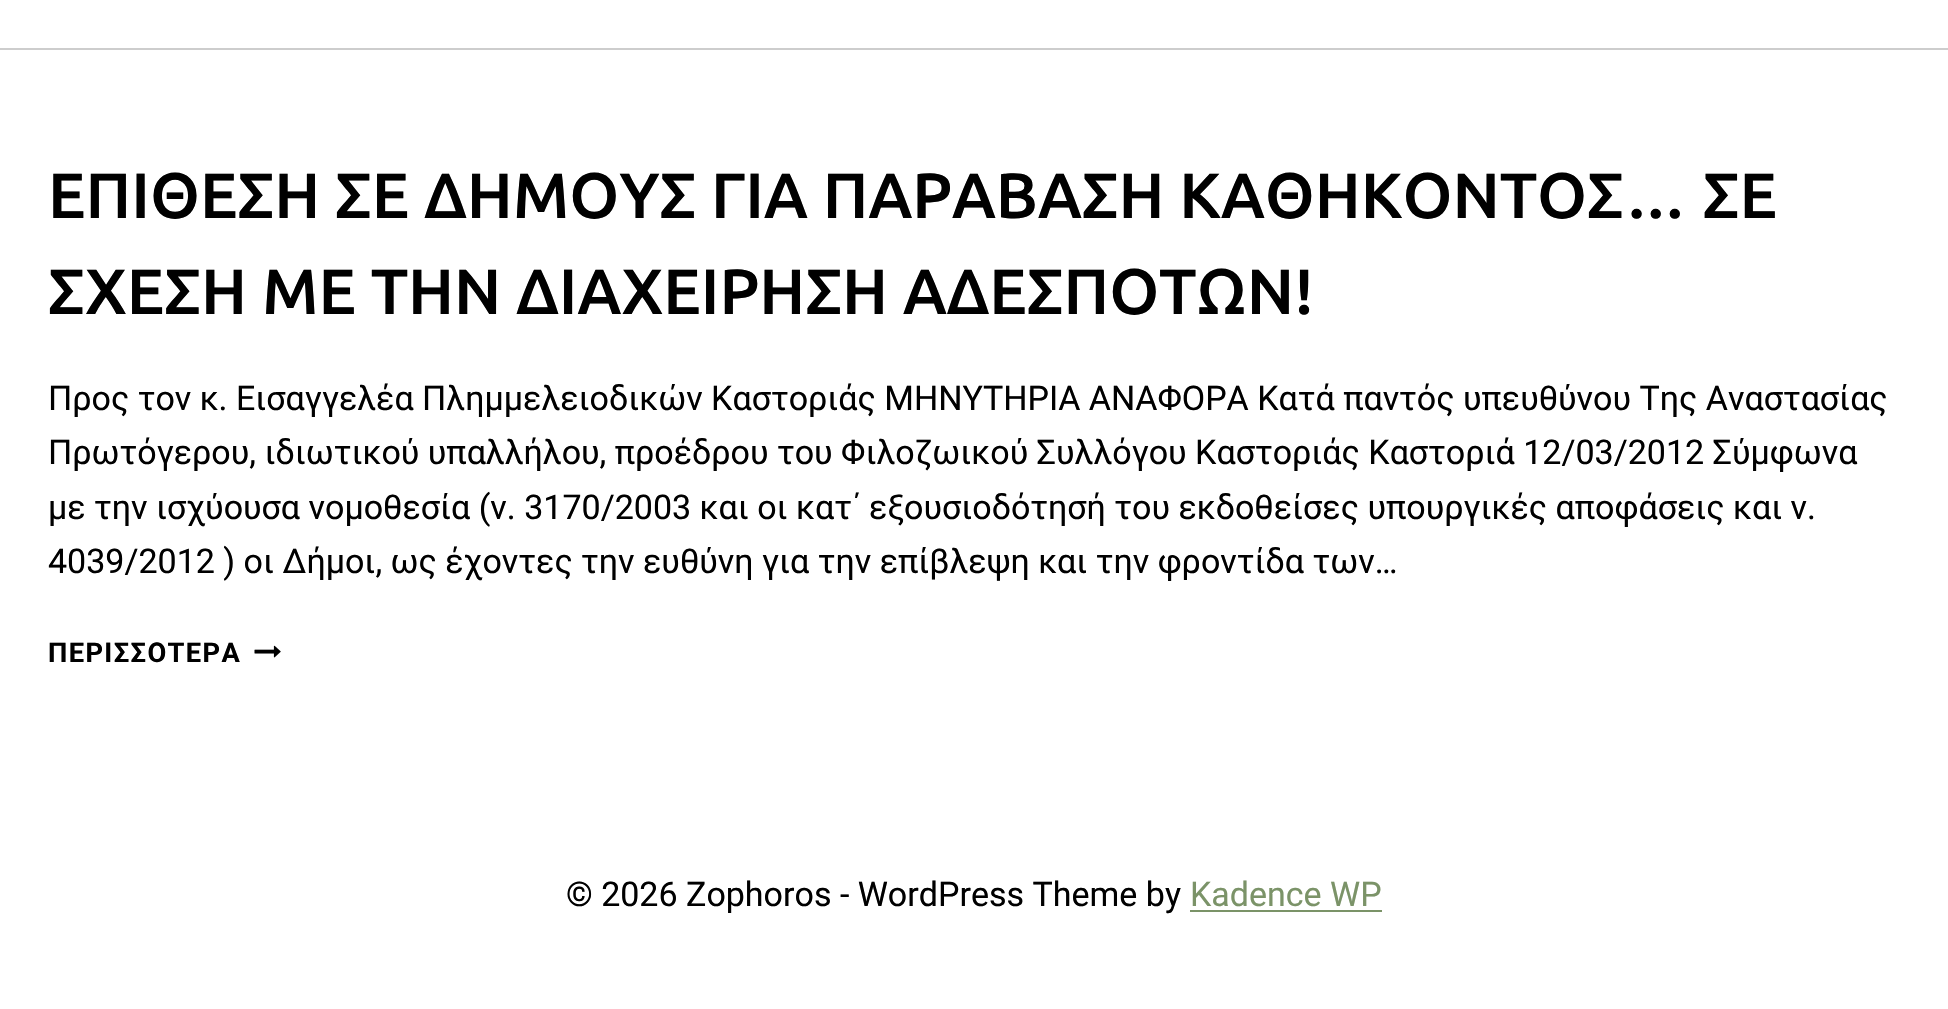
void draw(SkCanvas* c) {
SkPaint p;
p.setAntiAlias(true);
auto F=[&](const char* family, int weight, float size, bool italic = false){SkFontStyle style(weight, SkFontStyle::kNormal_Width,italic ? SkFontStyle::kItalic_Slant : SkFontStyle::kUpright_Slant);SkFont result(fontMgr->matchFamilyStyle(family, style), size);result.setSubpixel(true);return result;};
auto T=[&](const char* s, float x, float y, const SkFont& font){c->drawString(s, x, y, font, p);};
auto L=[&](const char* s, float x, float y, const SkFont& font, const SkPaint& ink, float letter, float word){std::vector<SkGlyphID> glyphs(font.countText(s, strlen(s), SkTextEncoding::kUTF8));std::vector<float> xs(glyphs.size());font.textToGlyphs(s, strlen(s), SkTextEncoding::kUTF8, glyphs);font.getXPos(glyphs, xs, x);float extra = 0;for (size_t i = 0; i < glyphs.size(); i++) {xs[i] += extra;extra += letter + word * (glyphs[i] == font.unicharToGlyph(' '));}c->drawTextBlob(SkTextBlob::MakeFromPosHGlyphs(glyphs, xs, y, font), 0, 0, ink);};
auto R=[&](float x, float y, float w, float h){c->drawRect(SkRect::MakeXYWH(x, y, w, h), p);};
auto I=[&](const char* path, float x, float y, float w, float h){auto image = SkImages::DeferredFromEncodedData(SkData::MakeFromFileName(path));c->drawImageRect(image, SkRect::MakeXYWH(x, y, w, h), SkSamplingOptions());};
c->clear(0xffffffff);
p.setColor(0xffcdcdcd);
R(0,48,1948,2);
auto f1 = F("Ubuntu",500,64);
p.setColor(0xff000000);
T("ΕΠΙΘΕΣΗ ΣΕ ΔΗΜΟΥΣ ΓΙΑ ΠΑΡΑΒΑΣΗ ΚΑΘΗΚΟΝΤΟΣ… ΣΕ",48,218,f1);
T("ΣΧΕΣΗ ΜΕ ΤΗΝ ΔΙΑΧΕΙΡΗΣΗ ΑΔΕΣΠΟΤΩΝ!",48,314,f1);
auto f2 = F("Roboto",400,34);
T("Προς τον κ. Εισαγγελέα Πλημμελειοδικών Καστοριάς ΜΗΝΥΤΗΡΙΑ ΑΝΑΦΟΡΑ Κατά παντός υπευθύνου Της Αναστασίας",48,410,f2);
T("Πρωτόγερου, ιδιωτικού υπαλλήλου, προέδρου του Φιλοζωικού Συλλόγου Καστοριάς Καστοριά 12/03/2012 Σύμφωνα",48,464,f2);
T("με την ισχύουσα νομοθεσία (ν. 3170/2003 και οι κατ΄ εξουσιοδότησή του εκδοθείσες υπουργικές αποφάσεις και ν.",48,519,f2);
T("4039/2012 ) οι Δήμοι, ως έχοντες την ευθύνη για την επίβλεψη και την φροντίδα των…",48,573,f2);
auto f3 = F("Roboto",700,27.25);
L("ΠΕΡΙΣΣΟΤΕΡΑ",48,662,f3,p,1.4,0);
I("1.png",254,645,27,13);
T("© 2026 Zophoros - WordPress Theme by",566,906,f2);
p.setColor(0xff7b9368);
T("Kadence WP",1190,906,f2);
R(1190,910,192,2);
}
